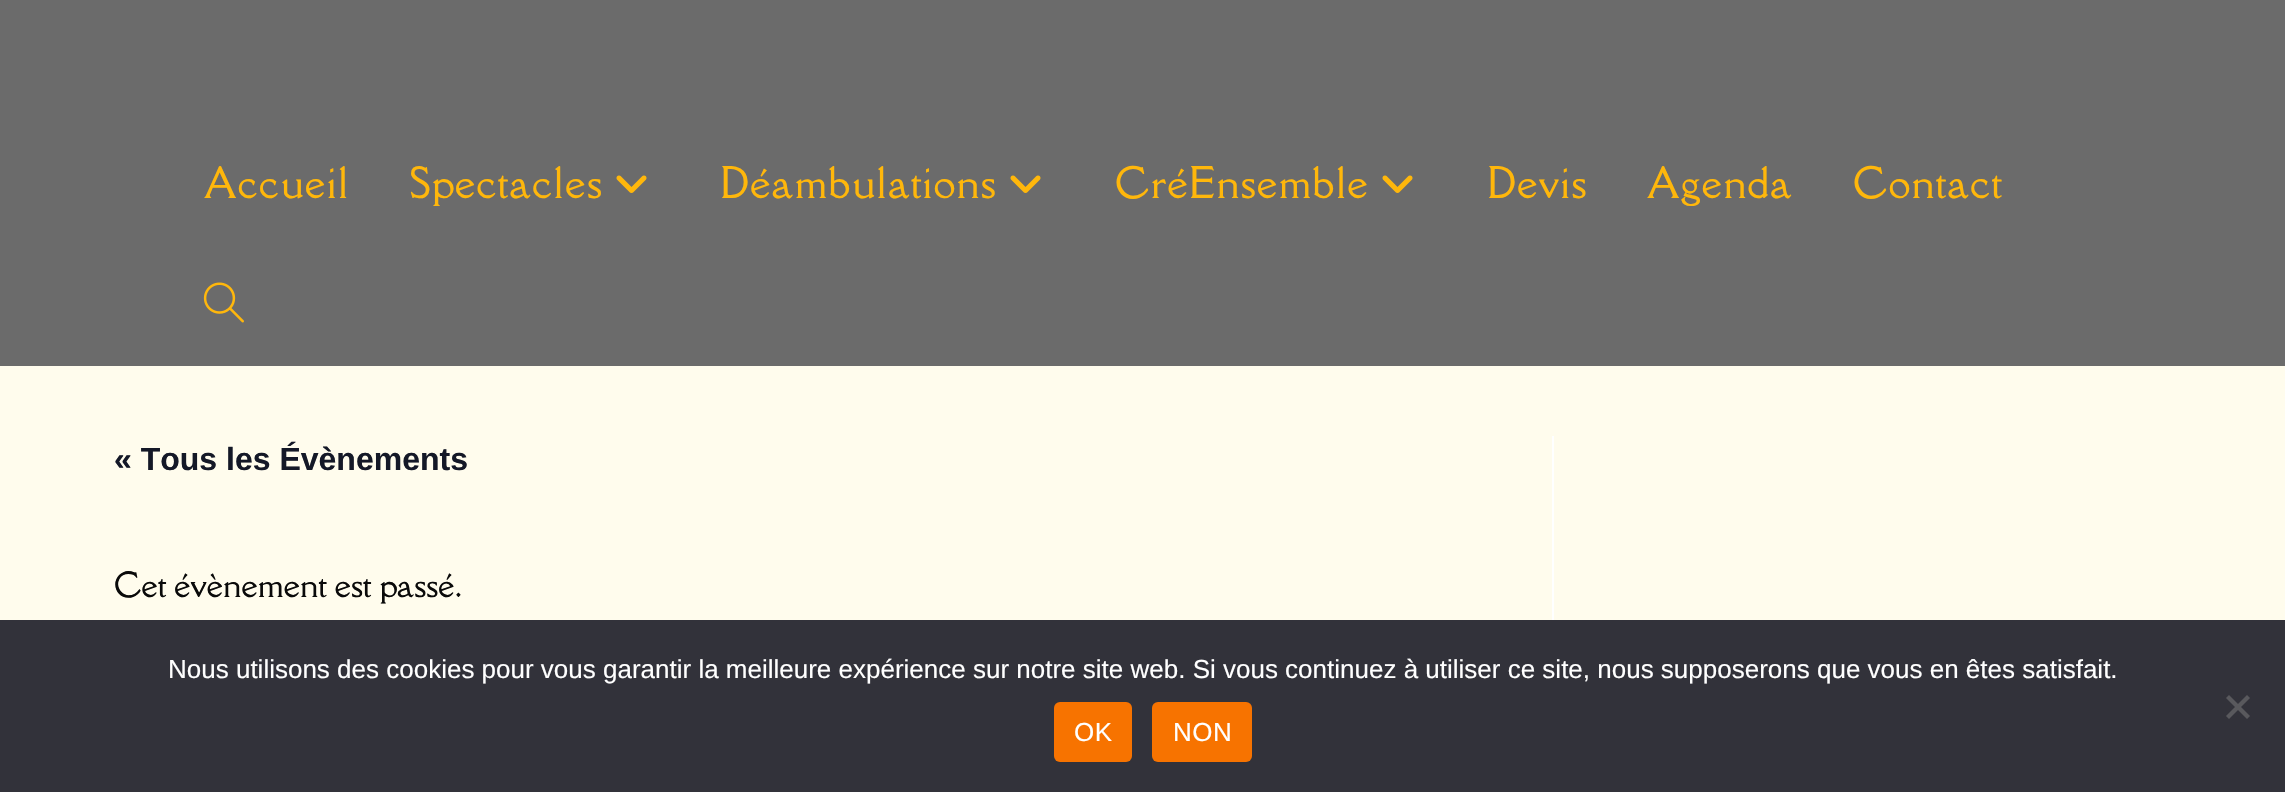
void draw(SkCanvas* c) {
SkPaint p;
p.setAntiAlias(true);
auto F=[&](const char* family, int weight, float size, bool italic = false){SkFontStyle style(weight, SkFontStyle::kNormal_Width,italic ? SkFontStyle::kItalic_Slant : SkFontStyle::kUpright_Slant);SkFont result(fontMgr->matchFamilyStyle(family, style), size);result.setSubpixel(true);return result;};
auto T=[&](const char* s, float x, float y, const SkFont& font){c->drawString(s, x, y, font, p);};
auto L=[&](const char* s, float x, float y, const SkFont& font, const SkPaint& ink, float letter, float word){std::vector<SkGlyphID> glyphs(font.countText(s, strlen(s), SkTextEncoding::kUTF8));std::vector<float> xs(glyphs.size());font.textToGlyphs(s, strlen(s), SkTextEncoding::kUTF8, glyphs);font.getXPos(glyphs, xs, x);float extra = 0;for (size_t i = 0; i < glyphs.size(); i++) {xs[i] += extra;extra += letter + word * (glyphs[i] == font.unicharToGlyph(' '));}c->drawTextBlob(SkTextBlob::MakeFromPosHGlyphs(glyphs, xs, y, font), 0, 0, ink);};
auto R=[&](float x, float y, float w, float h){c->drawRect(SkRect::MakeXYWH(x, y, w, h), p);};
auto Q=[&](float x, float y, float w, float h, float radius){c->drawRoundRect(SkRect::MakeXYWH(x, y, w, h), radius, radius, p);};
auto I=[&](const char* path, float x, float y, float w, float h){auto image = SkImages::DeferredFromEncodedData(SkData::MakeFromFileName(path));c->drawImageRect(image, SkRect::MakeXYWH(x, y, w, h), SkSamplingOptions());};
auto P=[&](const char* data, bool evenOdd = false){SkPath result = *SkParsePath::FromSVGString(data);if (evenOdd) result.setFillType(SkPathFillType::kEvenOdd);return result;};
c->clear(0xfffffced);
p.setColor(0xff6b6b6b);
R(0,0,2285,366);
auto f1 = F("Della Respira",400,40);
p.setColor(0xffffb70b);
L("Accueil",204,198,f1,p,1.25,0);
L("Spectacles",410,198,f1,p,1.25,0);
I("1.png",616,175,31,18);
L("Déambulations",720,198,f1,p,1.25,0);
I("1.png",1010,175,31,18);
L("CréEnsemble",1115,198,f1,p,1.25,0);
I("1.png",1382,175,31,18);
L("Devis",1487,198,f1,p,1.25,0);
L("Agenda",1647,198,f1,p,1.25,0);
L("Contact",1853,198,f1,p,1.25,0);
I("2.png",203,282,41,41);
p.setColor(0xffffffff);
R(1552,436,2,184);
auto f2 = F("Liberation Sans",700,32);
p.setColor(0xff141827);
T("« Tous les Évènements",114,470,f2);
auto f3 = F("Della Respira",400,32);
p.setColor(0xff0a0a0a);
T("Cet évènement est passé.",114,597,f3);
p.setColor(0xff32323a);
R(0,620,2285,172);
auto f4 = F("Liberation Sans",400,26);
p.setColor(0xffffffff);
T("Nous utilisons des cookies pour vous garantir la meilleure expérience sur notre site web. Si vous continuez à utiliser ce site, nous supposerons que vous en êtes satisfait.",168,678,f4);
p.setColor(0xff59595d);
c->drawPath(P("M2247 695l3 3l-21 21l-3-3z"),p);
c->drawPath(P("M2226 698l3-3l21 21l-3 3z"),p);
p.setColor(0xfff77300);
Q(1054,702,78,60,6);
p.setColor(0xffffffff);
L("OK",1074,741,f4,p,.5,0);
p.setColor(0xfff77300);
Q(1152,702,100,60,6);
p.setColor(0xffffffff);
L("NON",1173,741,f4,p,.5,0);
}
